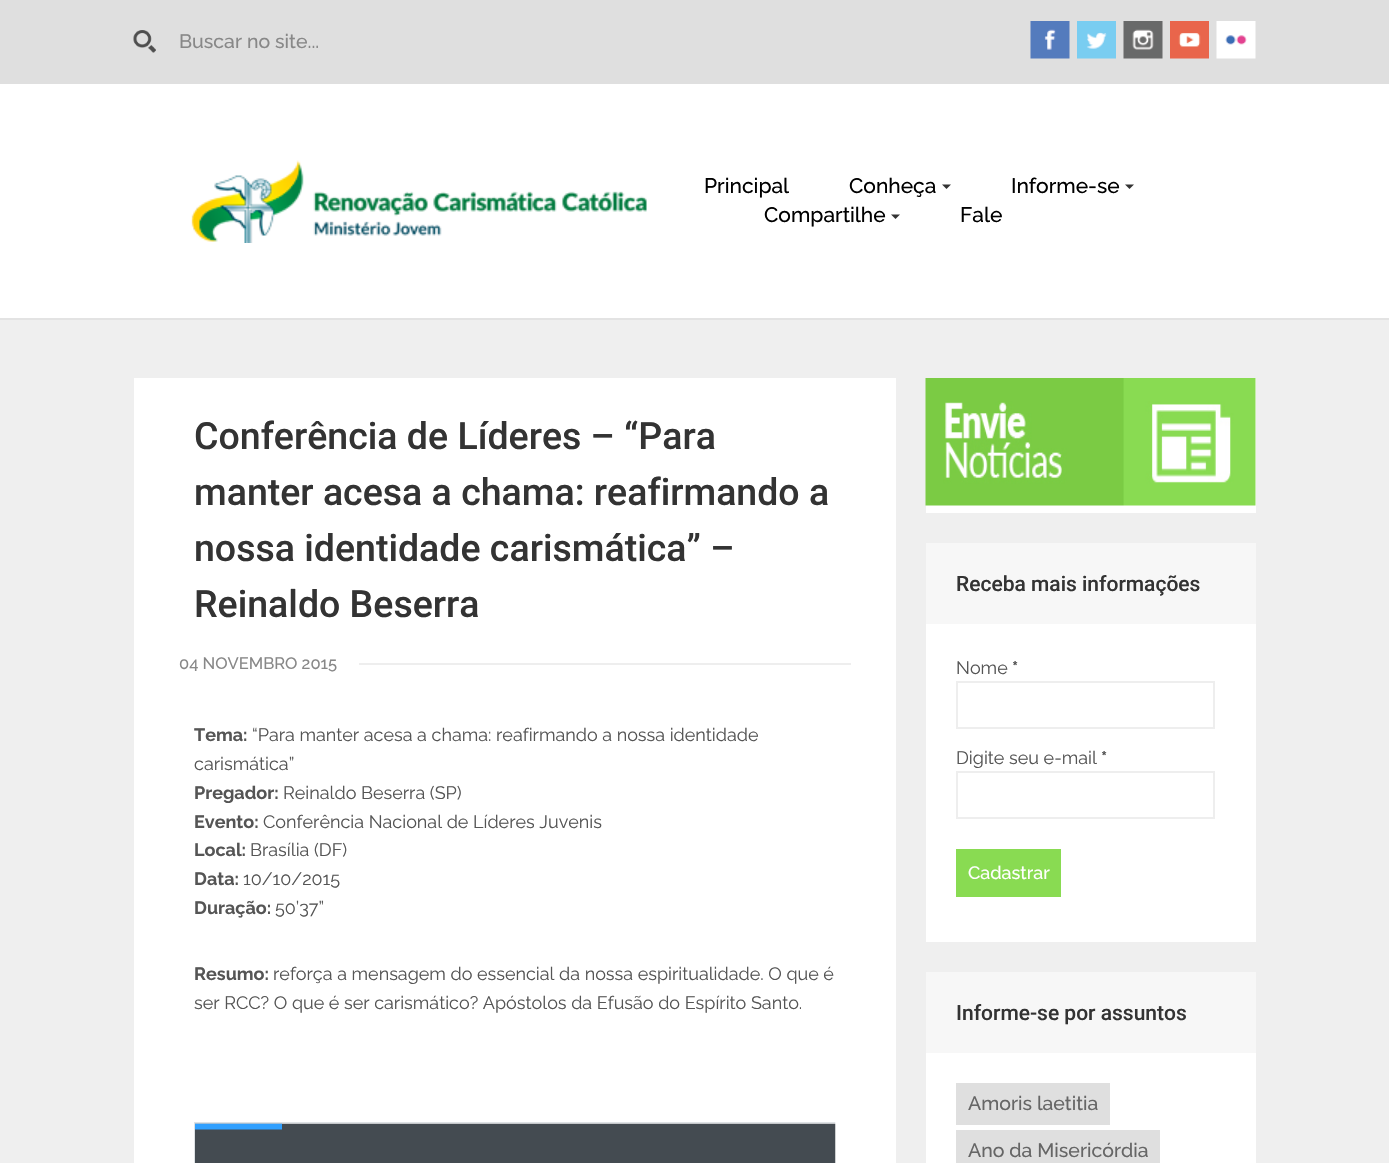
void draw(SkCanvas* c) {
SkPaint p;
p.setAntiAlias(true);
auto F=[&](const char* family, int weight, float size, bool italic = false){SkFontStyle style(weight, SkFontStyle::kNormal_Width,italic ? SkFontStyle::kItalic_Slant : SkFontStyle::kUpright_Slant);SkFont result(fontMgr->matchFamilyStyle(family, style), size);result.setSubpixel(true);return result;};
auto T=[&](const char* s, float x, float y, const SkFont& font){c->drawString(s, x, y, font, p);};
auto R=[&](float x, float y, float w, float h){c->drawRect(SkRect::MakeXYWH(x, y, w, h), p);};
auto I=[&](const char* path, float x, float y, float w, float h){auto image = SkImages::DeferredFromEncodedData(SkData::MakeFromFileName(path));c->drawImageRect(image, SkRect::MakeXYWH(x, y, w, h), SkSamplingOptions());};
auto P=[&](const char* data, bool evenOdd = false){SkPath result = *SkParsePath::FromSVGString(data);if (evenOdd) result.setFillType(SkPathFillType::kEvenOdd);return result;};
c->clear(0xffefefef);
p.setColor(0xffdfdfdf);
R(0,0,1389,84);
I("1.png",133,30,23,23);
auto f1 = F("Raleway",500,19.5);
p.setColor(0xff888888);
T("Buscar no site...",179,48,f1);
I("2.png",1030,21,40,38);
I("3.png",1077,21,39,38);
I("4.png",1123,21,40,38);
I("5.png",1170,21,39,38);
I("6.png",1216,21,40,38);
p.setColor(0xffe3e3e3);
R(0,318,1389,2);
p.setColor(0xffffffff);
R(0,84,1389,234);
I("7.png",191,160,456,83);
auto f2 = F("Raleway",500,21);
p.setColor(0xff000000);
T("Principal",704,193,f2);
T("Conheça",849,193,f2);
p.setColor(0xff333333);
c->drawPath(P("M942 184.5h9l-4.5 4.5z"),p);
p.setColor(0xff000000);
T("Informe-se",1011,193,f2);
p.setColor(0xff333333);
c->drawPath(P("M1125 184.5h9l-4.5 4.5z"),p);
p.setColor(0xff000000);
T("Compartilhe",764,222,f2);
p.setColor(0xff333333);
c->drawPath(P("M891 214.5h9l-4.5 4.5z"),p);
p.setColor(0xff000000);
T("Fale",960,222,f2);
p.setColor(0xffffffff);
R(134,378,762,785);
auto f3 = F("Roboto",500,37.5);
p.setColor(0xff333333);
T("Conferência de Líderes – “Para",194,449,f3);
T("manter acesa a chama: reafirmando a",194,505,f3);
T("nossa identidade carismática” –",194,561,f3);
T("Reinaldo Beserra",194,617,f3);
p.setColor(0xffeeeeee);
R(359,663,492,2);
auto f4 = F("Raleway",500,16.5);
p.setColor(0xff888888);
T("04 NOVEMBRO 2015",179,669,f4);
auto f5 = F("Raleway",700,18);
p.setColor(0xff555555);
T("Tema:",194,741,f5);
auto f6 = F("Raleway",400,18);
T("“Para manter acesa a chama: reafirmando a nossa identidade",252,741,f6);
T("carismática”",194,770,f6);
T("Pregador:",194,799,f5);
T("Reinaldo Beserra (SP)",283,799,f6);
T("Evento:",194,828,f5);
T("Conferência Nacional de Líderes Juvenis",263,828,f6);
T("Local:",194,856,f5);
T("Brasília (DF)",250,856,f6);
T("Data:",194,885,f5);
T("10/10/2015",243,885,f6);
T("Duração:",194,914,f5);
T("50’37”",275,914,f6);
T("Resumo:",194,980,f5);
T("reforça a mensagem do essencial da nossa espiritualidade. O que é",273,980,f6);
T("ser RCC? O que é ser carismático? Apóstolos da Efusão do Espírito Santo.",194,1009,f6);
I("8.png",194,1122,642,41);
p.setColor(0xffffffff);
R(926,378,330,135);
I("9.png",925,378,331,128);
R(926,624,330,318);
p.setColor(0xfff7f7f7);
R(926,543,330,81);
auto f7 = F("Roboto",500,21);
p.setColor(0xff333333);
T("Receba mais informações",956,591,f7);
p.setColor(0xff555555);
T("Nome",956,674,f6);
T("*",1012,674,f5);
p.setStroke(true);
p.setStrokeWidth(2);
p.setColor(0xffeeeeee);
c->drawRect(SkRect::MakeXYWH(957,682,257,46),p);
p.setStroke(false);
p.setColor(0xff555555);
T("Digite seu e-mail",956,764,f6);
T("*",1101,764,f5);
p.setStroke(true);
p.setColor(0xffeeeeee);
c->drawRect(SkRect::MakeXYWH(957,772,257,46),p);
p.setStroke(false);
p.setColor(0xff89db52);
R(956,849,105,48);
auto f8 = F("Raleway",500,18);
p.setColor(0xffffffff);
T("Cadastrar",968,879,f8);
R(926,1053,330,110);
p.setColor(0xfff7f7f7);
R(926,972,330,81);
p.setColor(0xff333333);
T("Informe-se por assuntos",956,1020,f7);
p.setColor(0xffdfdfdf);
R(956,1083,154,42);
p.setColor(0xff666666);
T("Amoris laetitia",968,1110,f1);
p.setColor(0xffdfdfdf);
R(956,1130,204,33);
p.setColor(0xff666666);
T("Ano da Misericórdia",968,1157,f1);
}
